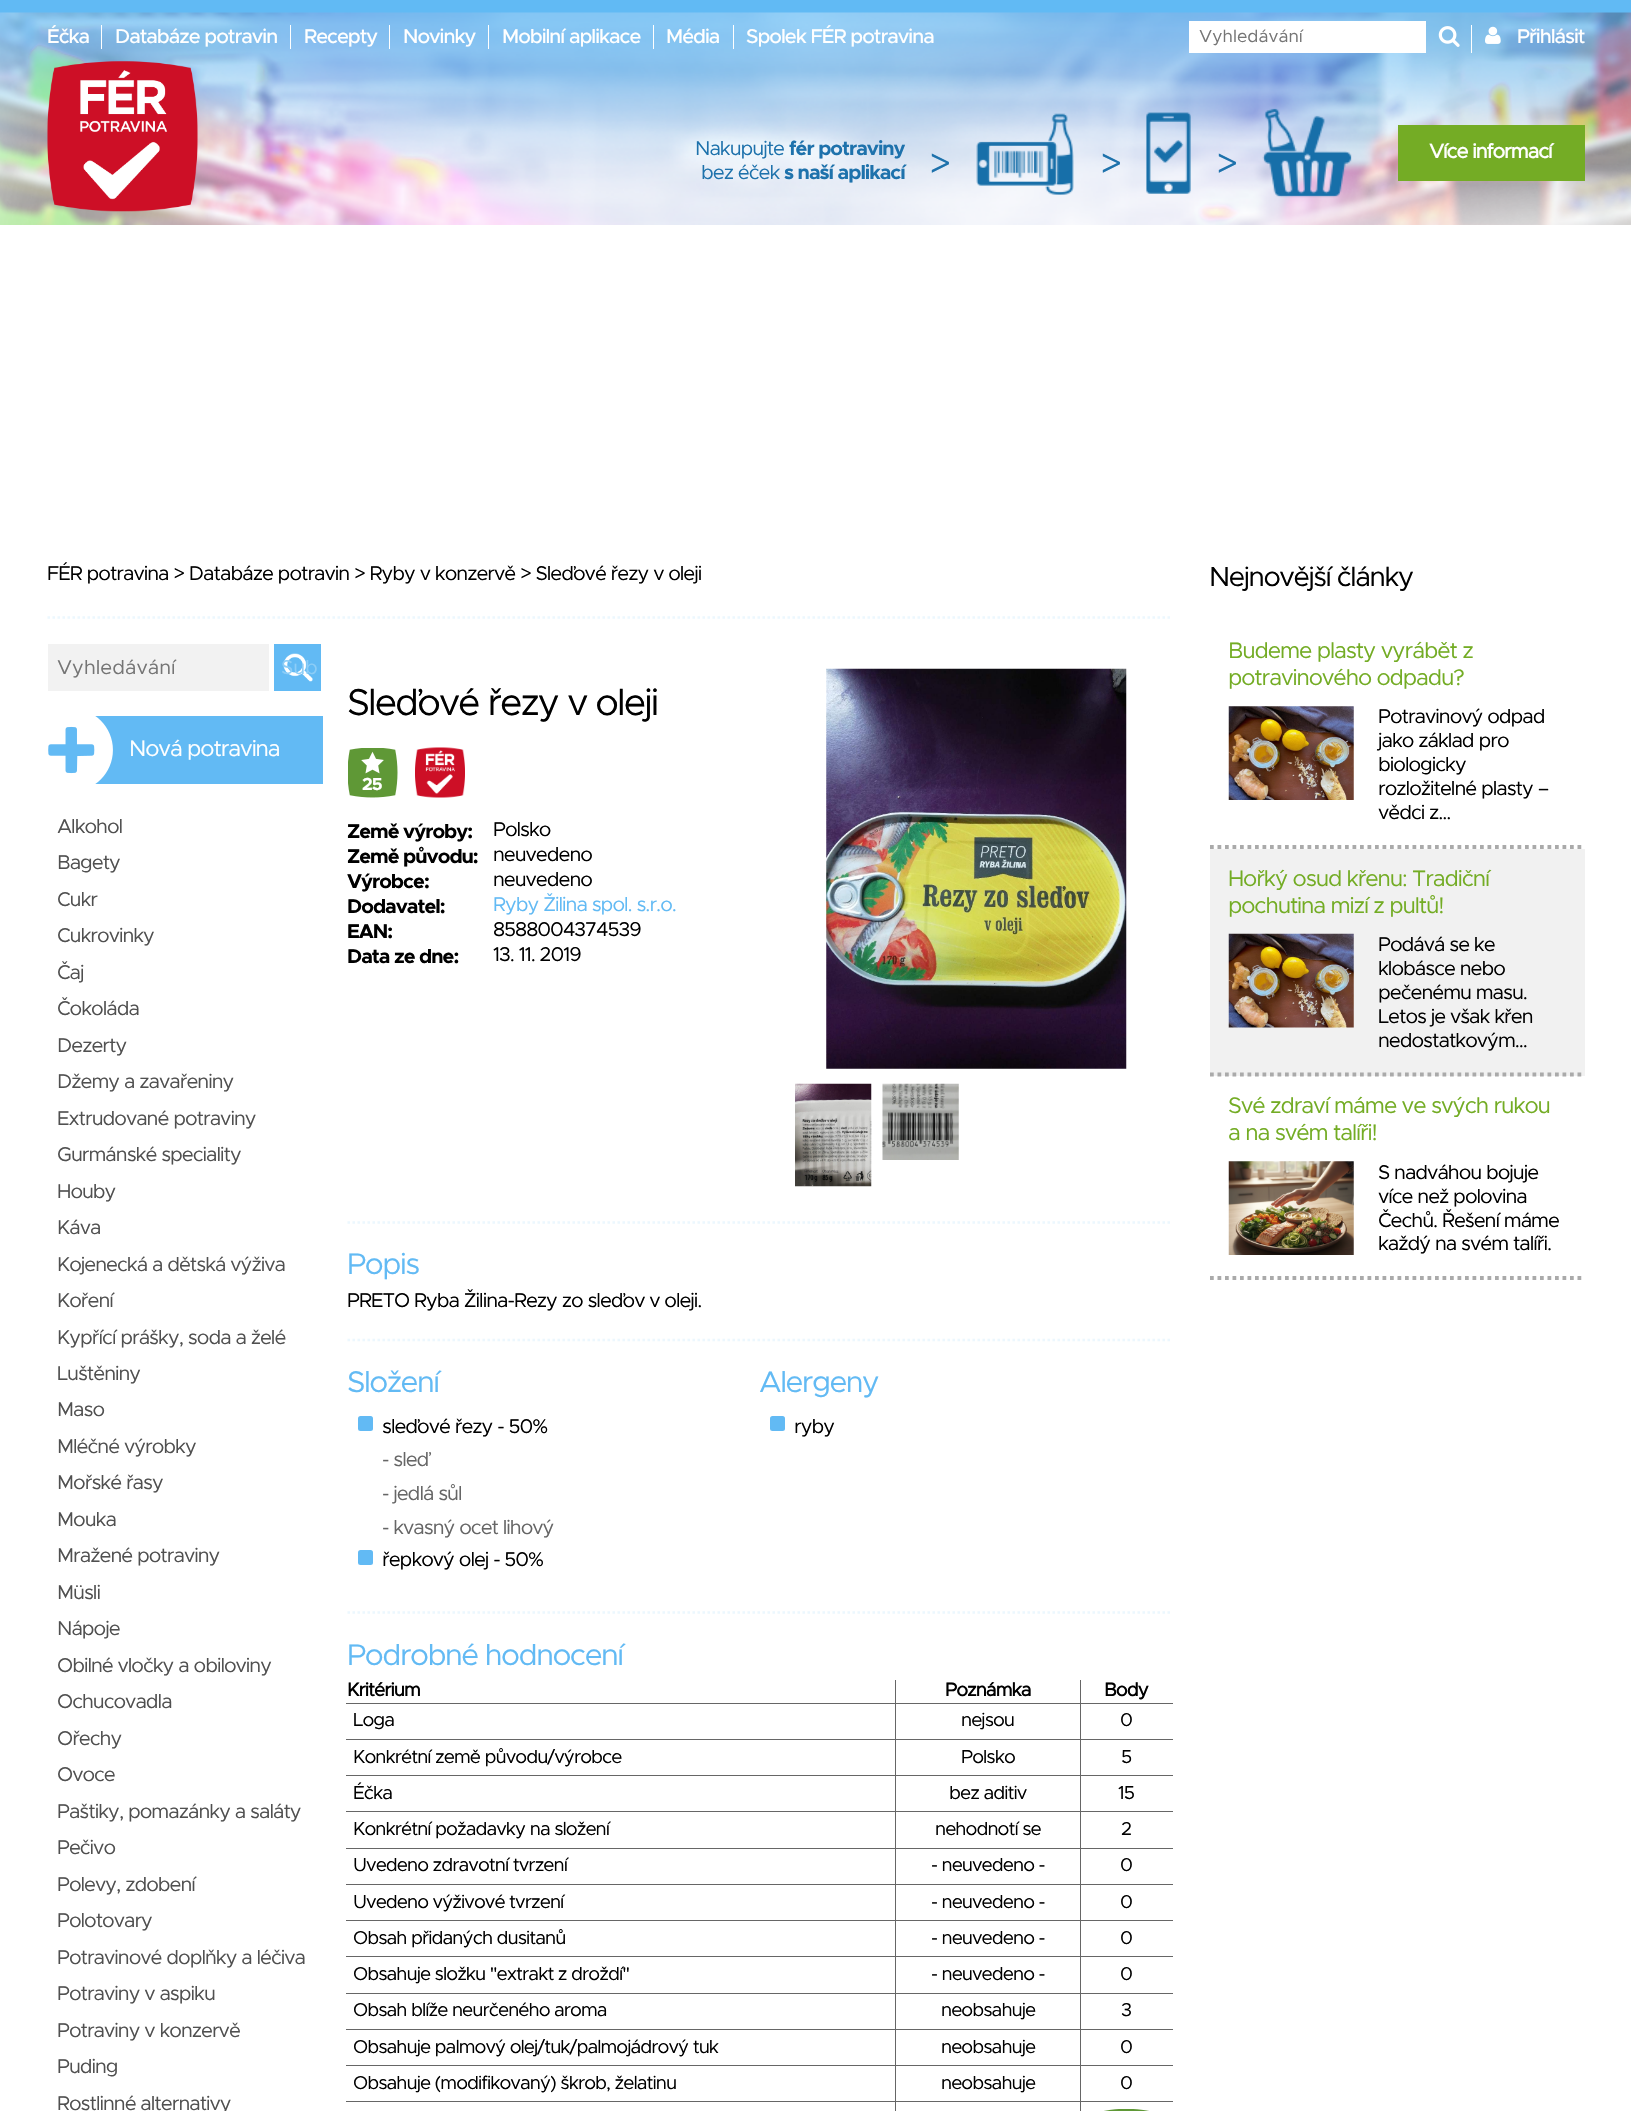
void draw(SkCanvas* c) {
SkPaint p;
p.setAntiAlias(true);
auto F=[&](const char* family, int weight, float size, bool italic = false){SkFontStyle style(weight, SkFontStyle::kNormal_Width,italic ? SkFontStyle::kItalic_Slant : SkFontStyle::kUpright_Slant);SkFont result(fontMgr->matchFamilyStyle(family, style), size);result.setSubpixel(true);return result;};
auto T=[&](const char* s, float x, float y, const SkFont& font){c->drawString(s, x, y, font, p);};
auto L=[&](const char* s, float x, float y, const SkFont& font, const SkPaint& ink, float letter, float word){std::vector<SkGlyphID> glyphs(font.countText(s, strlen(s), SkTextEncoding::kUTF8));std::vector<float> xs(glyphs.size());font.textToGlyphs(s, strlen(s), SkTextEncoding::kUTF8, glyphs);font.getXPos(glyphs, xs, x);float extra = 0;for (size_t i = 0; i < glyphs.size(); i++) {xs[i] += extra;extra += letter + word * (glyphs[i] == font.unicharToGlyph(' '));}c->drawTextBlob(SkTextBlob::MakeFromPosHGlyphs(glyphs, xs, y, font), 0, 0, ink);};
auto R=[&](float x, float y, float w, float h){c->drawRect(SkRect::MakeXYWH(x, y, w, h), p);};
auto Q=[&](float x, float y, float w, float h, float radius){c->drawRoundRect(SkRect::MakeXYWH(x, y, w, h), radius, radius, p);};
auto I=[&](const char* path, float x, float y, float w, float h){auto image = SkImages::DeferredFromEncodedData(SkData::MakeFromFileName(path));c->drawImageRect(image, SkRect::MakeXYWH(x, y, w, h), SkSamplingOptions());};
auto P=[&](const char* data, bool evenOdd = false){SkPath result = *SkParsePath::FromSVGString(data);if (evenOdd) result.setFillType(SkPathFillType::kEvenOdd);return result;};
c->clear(0xffffffff);
p.setColor(0xff61baf4);
R(0,0,1631,13);
I("1.png",0,12,1631,213);
p.setColor(0xffffffff);
R(101,25,1,24);
auto f1 = F("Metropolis",500,20);
L("Éčka",47,43,f1,p,-1,0);
R(290,25,1,24);
L("Databáze potravin",115,43,f1,p,-1,0);
R(389,25,1,24);
L("Recepty",304,43,f1,p,-1,0);
R(488,25,1,24);
L("Novinky",403,43,f1,p,-1,0);
R(653,25,1,24);
L("Mobilní aplikace",502,43,f1,p,-1,0);
R(733,25,1,24);
L("Média",666,43,f1,p,-1,0);
L("Spolek FÉR potravina",746,43,f1,p,-1,0);
R(1471,25,1,28);
R(1189,21,237,32);
auto f2 = F("Metropolis",400,17.5);
p.setColor(0xff757575);
T("Vyhledávání",1199,42,f2);
I("2.png",1438,26,22,21);
I("3.png",1485,26,16,18);
p.setColor(0xffffffff);
L("Přihlásit",1517,43,f1,p,-1,0);
I("4.png",47,61,151,151);
auto f3 = F("Metropolis",400,20);
p.setColor(0xff1e72ac);
L("Nakupujte",695,155,f3,p,-1,0);
auto f4 = F("Metropolis",700,20);
L("fér potraviny",789,155,f4,p,-1,0);
L("bez éček",701,179,f3,p,-1,0);
L("s naší aplikací",784,179,f4,p,-1,0);
I("5.png",976,113,98,82);
I("6.png",1146,112,45,82);
I("7.png",1262,108,90,90);
p.setColor(0xff74ac25);
R(1398,125,187,56);
auto f5 = F("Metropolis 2",700,20);
p.setColor(0xffffffff);
L("Více informací",1429,158,f5,p,-1,0);
auto f6 = F("Metropolis",400,37.5);
p.setColor(0xff1e72ac);
L(">",929,176,f6,p,-1.9,0);
L(">",1100,176,f6,p,-1.9,0);
L(">",1216,176,f6,p,-1.9,0);
p.setColor(0xff000000);
L("FÉR potravina > Databáze potravin > Ryby v konzervě > Sleďové řezy v oleji",47,580,f3,p,-1,0);
p.setStroke(true);
p.setStrokeWidth(2.5);
p.setColor(0xffecf7fe);
p.setPathEffect(SkDashPathEffect::Make({{2.5f,2.5f}}, 0));
c->drawPath(P("M47.5 617.5h1125"),p);
p.setPathEffect(nullptr);
p.setStroke(false);
p.setColor(0xfff2f2f2);
R(48,644,221,47);
p.setColor(0xff757575);
T("Vyhledávání",57,674,f3);
p.setColor(0xff62baf4);
R(274,644,47,47);
I("8.png",283,653,30,29);
p.setColor(0xff8ccdf7);
T("Sub",281,674,f3);
p.setColor(0xff62baf4);
R(48,716,275,68);
I("9.png",48,716,65,68);
auto f7 = F("Metropolis",400,22.5);
p.setColor(0xffffffff);
L("Nová potravina",129,756,f7,p,-1.1,0);
p.setColor(0xff505050);
L("Alkohol",57,833,f3,p,-1,0);
L("Bagety",57,869,f3,p,-1,0);
L("Cukr",57,906,f3,p,-1,0);
L("Cukrovinky",57,942,f3,p,-1,0);
L("Čaj",57,979,f3,p,-1,0);
L("Čokoláda",57,1015,f3,p,-1,0);
L("Dezerty",57,1052,f3,p,-1,0);
L("Džemy a zavařeniny",57,1088,f3,p,-1,0);
L("Extrudované potraviny",57,1125,f3,p,-1,0);
L("Gurmánské speciality",57,1161,f3,p,-1,0);
L("Houby",57,1198,f3,p,-1,0);
L("Káva",57,1234,f3,p,-1,0);
L("Kojenecká a dětská výživa",57,1271,f3,p,-1,0);
L("Koření",57,1307,f3,p,-1,0);
L("Kypřící prášky, soda a želé",57,1344,f3,p,-1,0);
L("Luštěniny",57,1380,f3,p,-1,0);
L("Maso",57,1416,f3,p,-1,0);
L("Mléčné výrobky",57,1453,f3,p,-1,0);
L("Mořské řasy",57,1489,f3,p,-1,0);
L("Mouka",57,1526,f3,p,-1,0);
L("Mražené potraviny",57,1562,f3,p,-1,0);
L("Müsli",57,1599,f3,p,-1,0);
L("Nápoje",57,1635,f3,p,-1,0);
L("Obilné vločky a obiloviny",57,1672,f3,p,-1,0);
L("Ochucovadla",57,1708,f3,p,-1,0);
L("Ořechy",57,1745,f3,p,-1,0);
L("Ovoce",57,1781,f3,p,-1,0);
L("Paštiky, pomazánky a saláty",57,1818,f3,p,-1,0);
L("Pečivo",57,1854,f3,p,-1,0);
L("Polevy, zdobení",57,1891,f3,p,-1,0);
L("Polotovary",57,1927,f3,p,-1,0);
L("Potravinové doplňky a léčiva",57,1964,f3,p,-1,0);
L("Potraviny v aspiku",57,2000,f3,p,-1,0);
L("Potraviny v konzervě",57,2037,f3,p,-1,0);
L("Puding",57,2073,f3,p,-1,0);
L("Rostlinné alternativy",57,2110,f3,p,-1,0);
p.setColor(0xff000000);
L("Sleďové řezy v oleji",347,715,f6,p,-1.9,0);
I("10.png",348,748,50,50);
auto f8 = F("Metropolis",700,17.5);
p.setColor(0xffffffff);
L("25",362,790,f8,p,-1,0);
I("11.png",415,747,50,51);
p.setColor(0xff000000);
L("Země výroby:",347,838,f4,p,-1,0);
L("Polsko",493,836,f3,p,-1,0);
L("Země původu:",347,863,f4,p,-1,0);
L("neuvedeno",493,861,f3,p,-1,0);
L("Výrobce:",347,888,f4,p,-1,0);
L("neuvedeno",493,886,f3,p,-1,0);
L("Dodavatel:",347,913,f4,p,-1,0);
p.setColor(0xff62baf4);
L("Ryby Žilina spol. s.r.o.",493,911,f3,p,-1,0);
p.setColor(0xff000000);
L("EAN:",347,938,f4,p,-1,0);
L("8588004374539",493,936,f3,p,-1,0);
L("Data ze dne:",347,963,f4,p,-1,0);
L("13. 11. 2019",493,961,f3,p,-1,0);
I("12.png",826,668,301,401);
I("13.png",795,1083,77,104);
I("14.png",882,1083,77,77);
p.setStroke(true);
p.setColor(0xffecf7fe);
p.setPathEffect(SkDashPathEffect::Make({{2.5f,2.5f}}, 0));
c->drawPath(P("M347.5 1222.5h825"),p);
p.setPathEffect(nullptr);
auto f9 = F("Metropolis",400,30);
p.setStroke(false);
p.setColor(0xff62baf4);
L("Popis",347,1274,f9,p,-1.5,0);
p.setColor(0xff000000);
L("PRETO Ryba Žilina-Rezy zo sleďov v oleji.",347,1307,f3,p,-1,0);
p.setStroke(true);
p.setColor(0xffecf7fe);
p.setPathEffect(SkDashPathEffect::Make({{2.5f,2.5f}}, 0));
c->drawPath(P("M347.5 1340h825"),p);
p.setPathEffect(nullptr);
p.setStroke(false);
p.setColor(0xff62baf4);
L("Složení",347,1392,f9,p,-1.5,0);
Q(358,1416,15,15,2.5);
p.setColor(0xff000000);
L("sleďové řezy - 50%",382,1433,f3,p,-1,0);
p.setColor(0xff666666);
L("- sleď",382,1466,f3,p,-1,0);
L("- jedlá sůl",382,1500,f3,p,-1,0);
L("- kvasný ocet lihový",382,1534,f3,p,-1,0);
p.setColor(0xff62baf4);
Q(358,1550,15,15,2.5);
p.setColor(0xff000000);
L("řepkový olej - 50%",382,1566,f3,p,-1,0);
p.setColor(0xff62baf4);
L("Alergeny",759,1392,f9,p,-1.5,0);
Q(770,1416,15,15,2.5);
p.setColor(0xff000000);
L("ryby",794,1433,f3,p,-1,0);
p.setStroke(true);
p.setColor(0xffecf7fe);
p.setPathEffect(SkDashPathEffect::Make({{2.5f,2.5f}}, 0));
c->drawPath(P("M347.5 1612.5h825"),p);
p.setPathEffect(nullptr);
p.setStroke(false);
p.setColor(0xff62baf4);
L("Podrobné hodnocení",347,1665,f9,p,-1.5,0);
auto f10 = F("Metropolis 2",700,18.75);
p.setColor(0xff000000);
L("Kritérium",347,1696,f10,p,-.95,0);
p.setColor(0xff666666);
R(1080,1703,93,1);
R(1080,1739,93,1);
R(1080,1775,93,1);
R(1080,1811,93,1);
R(1080,1848,93,1);
R(1080,1884,93,1);
R(1080,1920,93,1);
R(1080,1956,93,1);
R(1080,1993,93,1);
R(1080,2029,93,1);
R(1080,2065,93,1);
R(1080,2101,93,1);
R(1080,2101,1,10);
R(895,2101,186,1);
R(1080,2065,1,38);
R(895,2065,186,1);
R(1080,2029,1,37);
R(895,2029,186,1);
R(1080,1993,1,37);
R(895,1993,186,1);
R(1080,1956,1,38);
R(895,1956,186,1);
R(1080,1920,1,38);
R(895,1920,186,1);
R(1080,1884,1,37);
R(895,1884,186,1);
R(1080,1848,1,37);
R(895,1848,186,1);
R(1080,1811,1,38);
R(895,1811,186,1);
R(1080,1775,1,38);
R(895,1775,186,1);
R(1080,1739,1,37);
R(895,1739,186,1);
R(1080,1703,1,37);
R(895,1703,186,1);
R(895,2101,1,10);
R(346,2101,550,1);
R(895,2065,1,38);
R(346,2065,550,1);
R(895,2029,1,37);
R(346,2029,550,1);
R(895,1993,1,37);
R(346,1993,550,1);
R(895,1956,1,38);
R(346,1956,550,1);
R(895,1920,1,38);
R(346,1920,550,1);
R(895,1884,1,37);
R(346,1884,550,1);
R(895,1848,1,37);
R(346,1848,550,1);
R(895,1811,1,38);
R(346,1811,550,1);
R(895,1775,1,38);
R(346,1775,550,1);
R(895,1739,1,37);
R(346,1739,550,1);
R(895,1703,1,37);
R(346,1703,550,1);
R(895,1680,1,24);
p.setColor(0xff000000);
L("Poznámka",945,1696,f10,p,-.95,0);
p.setColor(0xff666666);
R(1080,1680,1,24);
p.setColor(0xff000000);
L("Body",1104,1696,f10,p,-.95,0);
auto f11 = F("Metropolis",400,18.75);
L("Loga",353,1726,f11,p,-.95,0);
L("nejsou",961,1726,f11,p,-.95,0);
L("0",1120,1726,f11,p,-.95,0);
L("Konkrétní země původu/výrobce",353,1763,f11,p,-.95,0);
L("Polsko",961,1763,f11,p,-.95,0);
L("5",1121,1763,f11,p,-.95,0);
L("Éčka",353,1799,f11,p,-.95,0);
L("bez aditiv",949,1799,f11,p,-.95,0);
L("15",1118,1799,f11,p,-.95,0);
L("Konkrétní požadavky na složení",353,1835,f11,p,-.95,0);
L("nehodnotí se",935,1835,f11,p,-.95,0);
L("2",1121,1835,f11,p,-.95,0);
L("Uvedeno zdravotní tvrzení",353,1871,f11,p,-.95,0);
L("- neuvedeno -",931,1871,f11,p,-.95,0);
L("0",1120,1871,f11,p,-.95,0);
L("Uvedeno výživové tvrzení",353,1908,f11,p,-.95,0);
L("- neuvedeno -",931,1908,f11,p,-.95,0);
L("0",1120,1908,f11,p,-.95,0);
L("Obsah přidaných dusitanů",353,1944,f11,p,-.95,0);
L("- neuvedeno -",931,1944,f11,p,-.95,0);
L("0",1120,1944,f11,p,-.95,0);
L("Obsahuje složku \"extrakt z droždí\"",353,1980,f11,p,-.95,0);
L("- neuvedeno -",931,1980,f11,p,-.95,0);
L("0",1120,1980,f11,p,-.95,0);
L("Obsah blíže neurčeného aroma",353,2016,f11,p,-.95,0);
L("neobsahuje",941,2016,f11,p,-.95,0);
L("3",1121,2016,f11,p,-.95,0);
L("Obsahuje palmový olej/tuk/palmojádrový tuk",353,2053,f11,p,-.95,0);
L("neobsahuje",941,2053,f11,p,-.95,0);
L("0",1120,2053,f11,p,-.95,0);
L("Obsahuje (modifikovaný) škrob, želatinu",353,2089,f11,p,-.95,0);
L("neobsahuje",941,2089,f11,p,-.95,0);
L("0",1120,2089,f11,p,-.95,0);
I("15.png",1104,2109,45,2);
auto f12 = F("Metropolis",400,27.5);
L("Nejnovější články",1209,586,f12,p,-1.4,0);
p.setStroke(true);
p.setStrokeWidth(3.8);
p.setColor(0xffaaaaaa);
p.setPathEffect(SkDashPathEffect::Make({{3.75f,3.75f}}, 0));
c->drawPath(P("M1210 847h375"),p);
p.setPathEffect(nullptr);
p.setStroke(false);
p.setColor(0xff73ac24);
L("Budeme plasty vyrábět z",1228,658,f7,p,-1.1,0);
L("potravinového odpadu?",1228,685,f7,p,-1.1,0);
I("16.png",1228,706,126,94);
p.setColor(0xff000000);
L("Potravinový odpad",1378,723,f3,p,-1,0);
L("jako základ pro",1378,747,f3,p,-1,0);
L("biologicky",1378,771,f3,p,-1,0);
L("rozložitelné plasty –",1378,795,f3,p,-1,0);
L("vědci z…",1378,819,f3,p,-1,0);
p.setColor(0xfff1f1f1);
R(1210,849,375,227);
p.setStroke(true);
p.setColor(0xffaaaaaa);
p.setPathEffect(SkDashPathEffect::Make({{3.75f,3.75f}}, 0));
c->drawPath(P("M1210 1074.5h375"),p);
p.setPathEffect(nullptr);
p.setStroke(false);
p.setColor(0xff73ac24);
L("Hořký osud křenu: Tradiční",1228,886,f7,p,-1.1,0);
L("pochutina mizí z pultů!",1228,913,f7,p,-1.1,0);
I("17.png",1228,933,126,95);
p.setColor(0xff000000);
L("Podává se ke",1378,951,f3,p,-1,0);
L("klobásce nebo",1378,975,f3,p,-1,0);
L("pečenému masu.",1378,999,f3,p,-1,0);
L("Letos je však křen",1378,1023,f3,p,-1,0);
L("nedostatkovým…",1378,1047,f3,p,-1,0);
p.setStroke(true);
p.setColor(0xffaaaaaa);
p.setPathEffect(SkDashPathEffect::Make({{3.75f,3.75f}}, 0));
c->drawPath(P("M1210 1278h375"),p);
p.setPathEffect(nullptr);
p.setStroke(false);
p.setColor(0xff73ac24);
L("Své zdraví máme ve svých rukou",1228,1113,f7,p,-1.1,0);
L("a na svém talíři!",1228,1140,f7,p,-1.1,0);
I("18.png",1228,1161,126,94);
p.setColor(0xff000000);
L("S nadváhou bojuje",1378,1179,f3,p,-1,0);
L("více než polovina",1378,1203,f3,p,-1,0);
L("Čechů. Řešení máme",1378,1227,f3,p,-1,0);
L("každý na svém talíři.",1378,1250,f3,p,-1,0);
}
